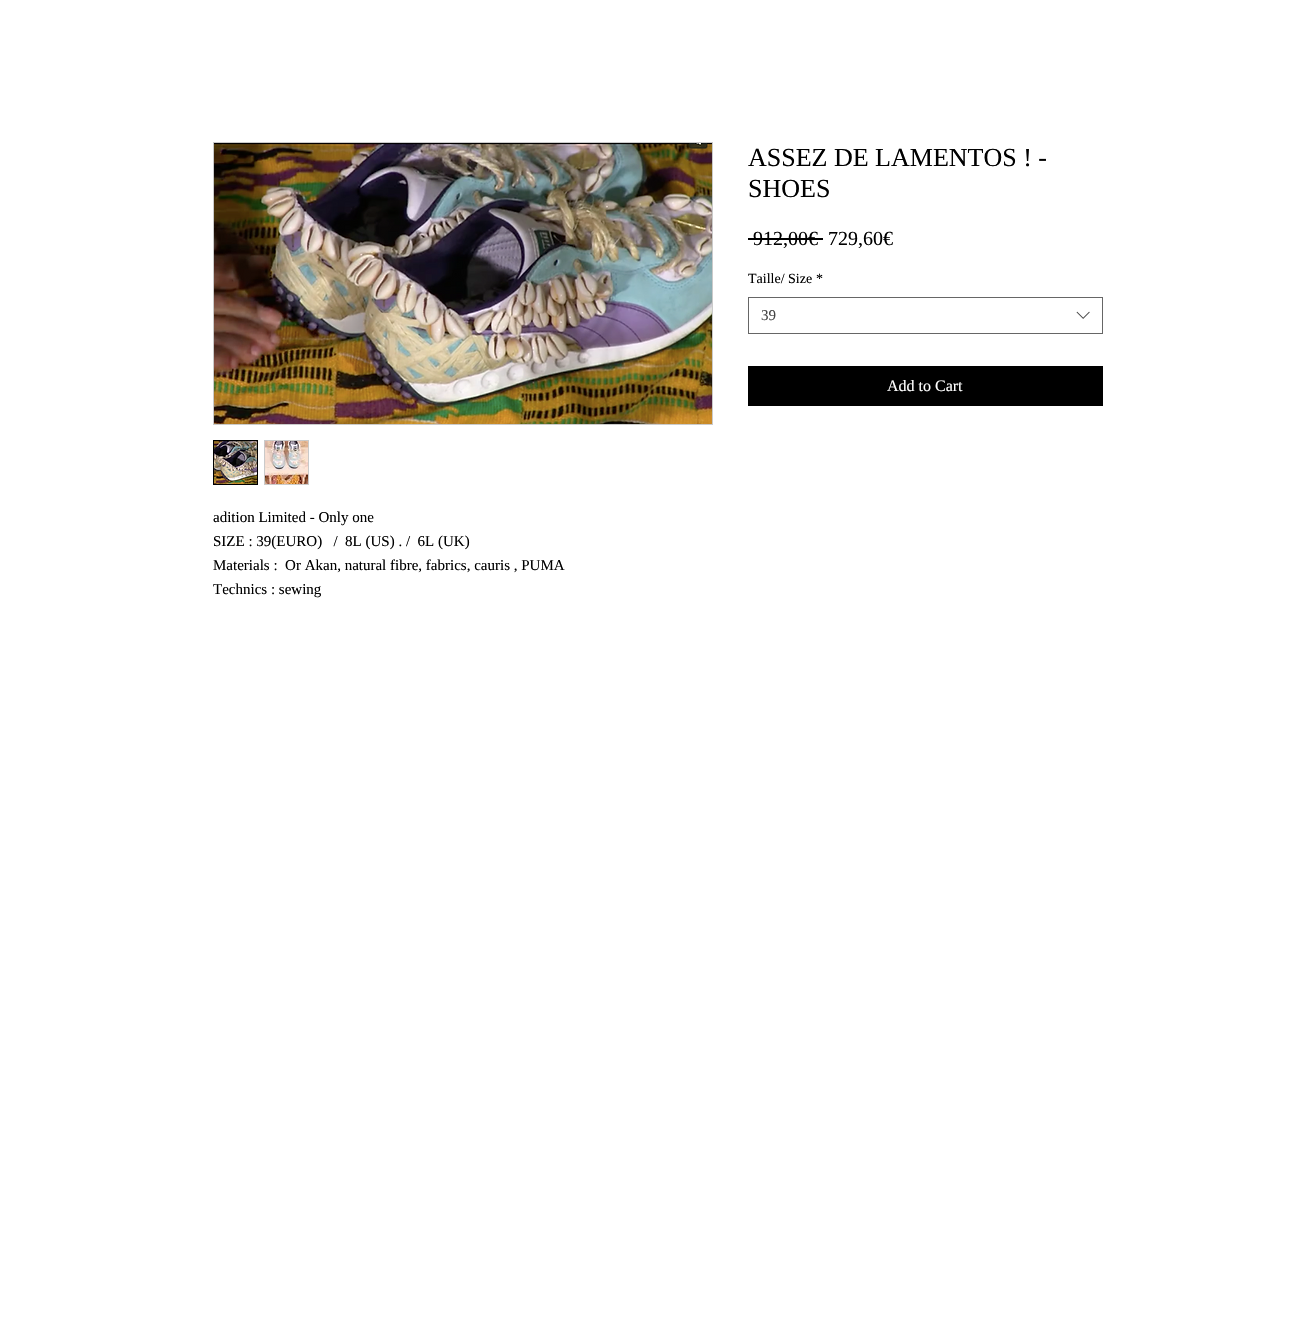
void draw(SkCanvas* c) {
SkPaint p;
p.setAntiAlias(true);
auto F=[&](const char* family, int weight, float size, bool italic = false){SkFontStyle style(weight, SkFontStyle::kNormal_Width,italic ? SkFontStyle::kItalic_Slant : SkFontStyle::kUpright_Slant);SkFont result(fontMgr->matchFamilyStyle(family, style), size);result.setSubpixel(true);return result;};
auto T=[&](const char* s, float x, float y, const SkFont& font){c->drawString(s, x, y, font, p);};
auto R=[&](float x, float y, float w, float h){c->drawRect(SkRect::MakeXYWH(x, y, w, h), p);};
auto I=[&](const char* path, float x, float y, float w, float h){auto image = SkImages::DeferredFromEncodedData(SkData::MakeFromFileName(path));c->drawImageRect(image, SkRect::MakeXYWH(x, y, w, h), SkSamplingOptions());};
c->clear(0xffffffff);
auto f1 = F("Liberation Serif",400,26);
p.setColor(0xff000000);
T("ASSEZ DE LAMENTOS ! -",748,166,f1);
T("SHOES",748,197,f1);
auto f2 = F("Liberation Serif",400,20);
T("912,00€",753,245,f2);
R(748,238,75,2);
T("729,60€",828,245,f2);
auto f3 = F("Liberation Serif",400,14);
T("Taille/ Size",748,283,f3);
T("*",816,283,f3);
p.setStroke(true);
p.setStrokeWidth(1);
p.setColor(0xff666666);
c->drawRect(SkRect::MakeXYWH(748.5,297.5,354,36),p);
auto f4 = F("Liberation Serif",400,15);
p.setStroke(false);
p.setColor(0xff444444);
T("39",761,320,f4);
I("1.png",1076,311,14,8);
p.setColor(0xff000000);
R(748,366,355,40);
auto f5 = F("Liberation Serif",400,16);
p.setColor(0xffffffff);
T("Add to Cart",887,391,f5);
p.setStroke(true);
p.setColor(0xffcacaca);
c->drawRect(SkRect::MakeXYWH(213.5,142.5,499,282),p);
I("2.png",214,143,498,281);
p.setColor(0xff000000);
c->drawRect(SkRect::MakeXYWH(213.5,440.5,44,44),p);
I("3.png",214,441,43,43);
p.setStroke(false);
p.setColor(0xffcacaca);
R(264,440,45,45);
I("4.png",265,441,43,43);
p.setColor(0xff000000);
T("adition Limited - Only one",213,522,f4);
T("SIZE : 39(EURO)   /  8L (US) . /  6L (UK)",213,546,f4);
T("Materials :  Or Akan, natural fibre, fabrics, cauris , PUMA",213,570,f4);
c->save();
c->clipRect(SkRect::MakeXYWH(213,505,351,96));
T("Technics : sewing",213,594,f4);
c->restore();
}
